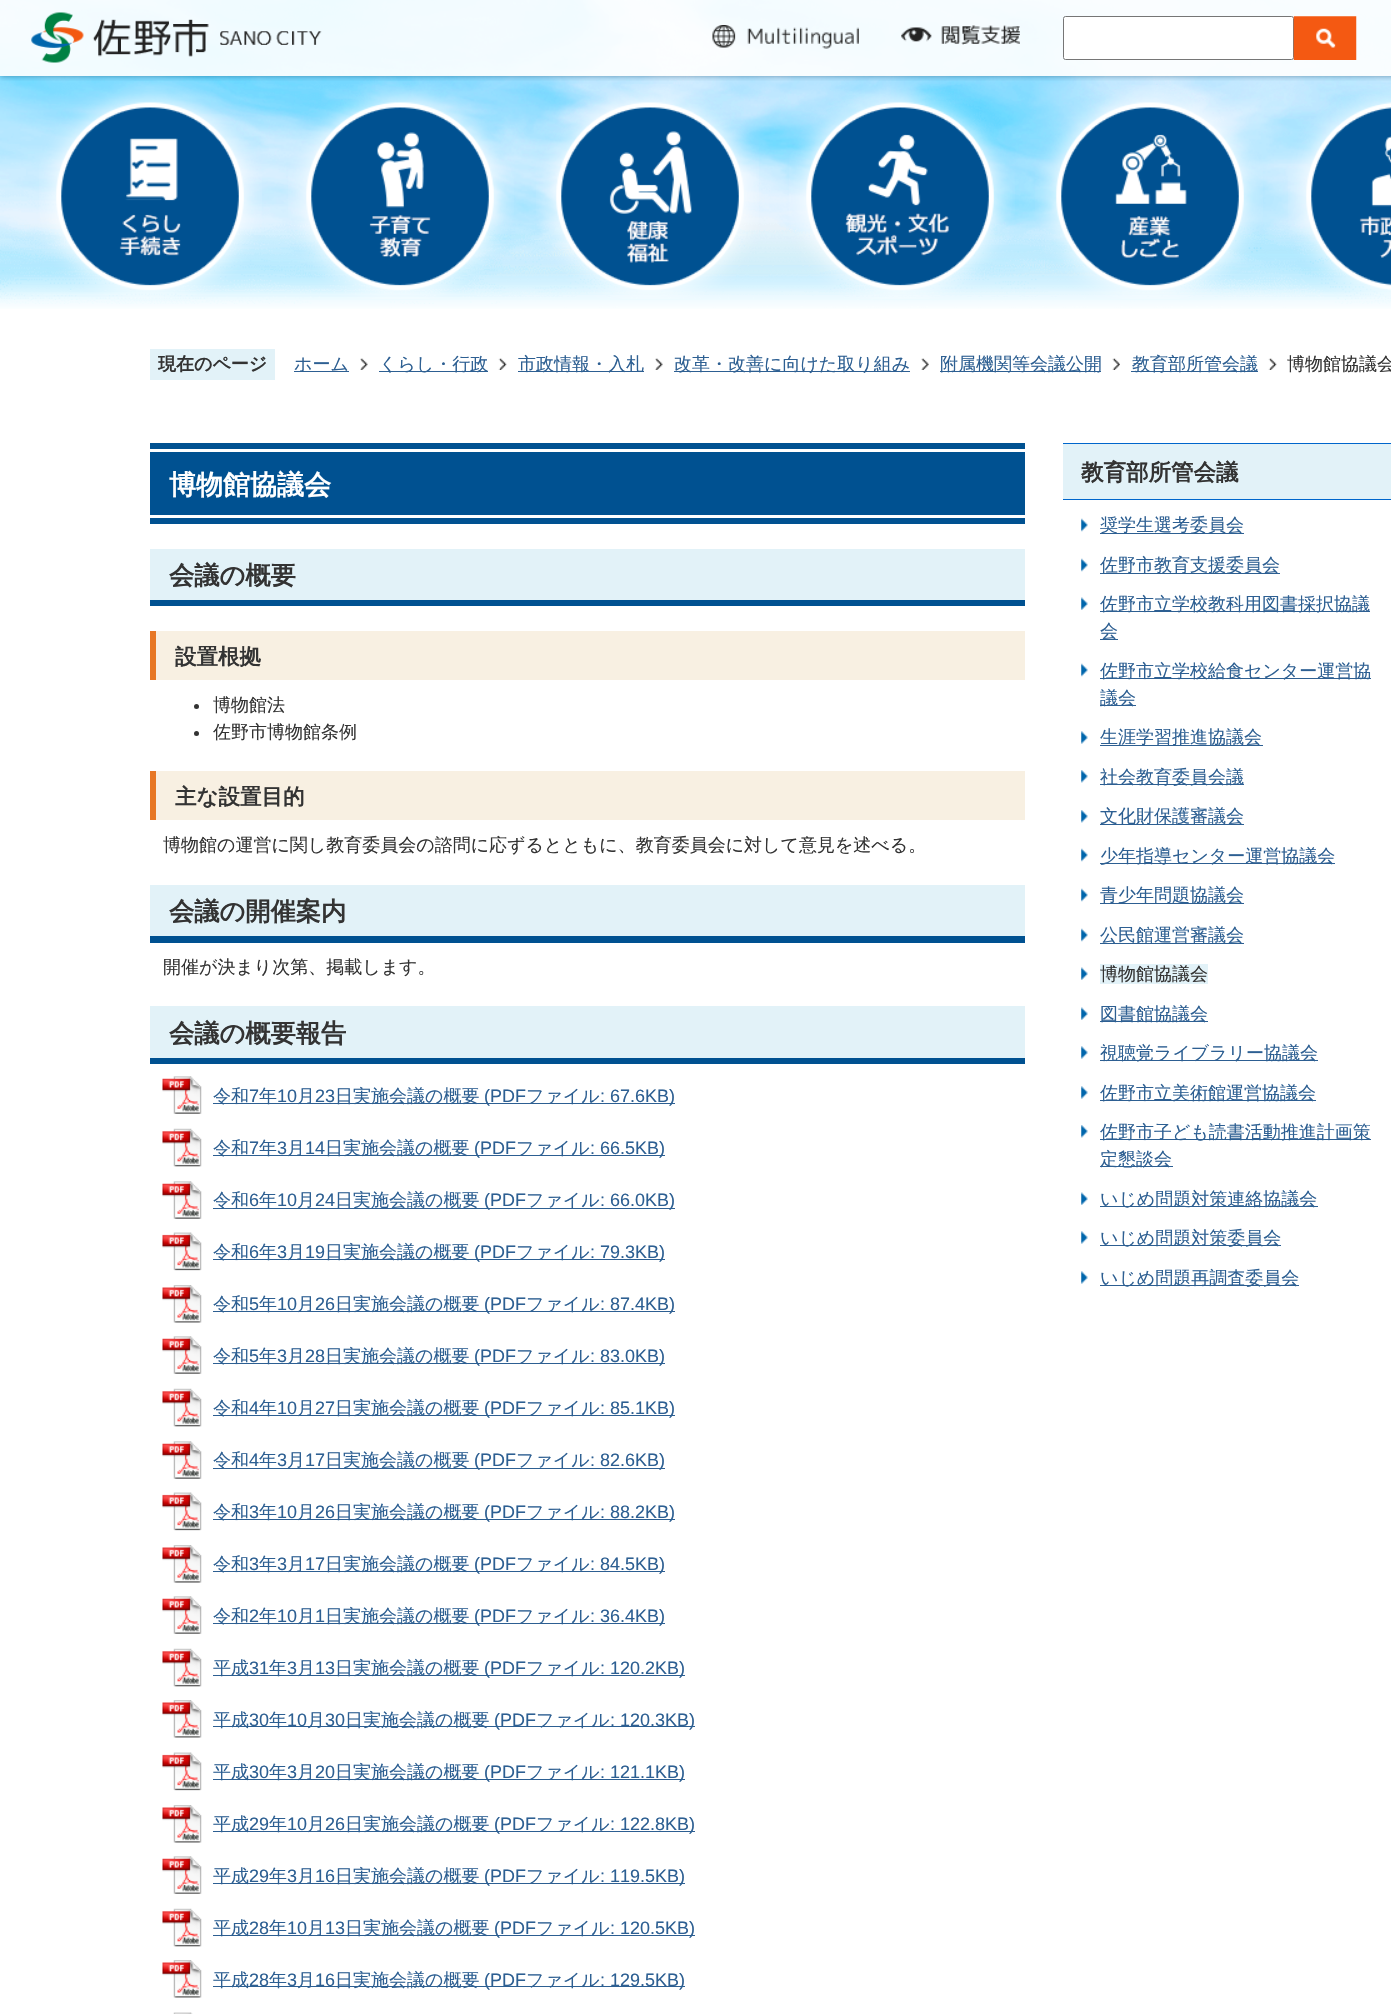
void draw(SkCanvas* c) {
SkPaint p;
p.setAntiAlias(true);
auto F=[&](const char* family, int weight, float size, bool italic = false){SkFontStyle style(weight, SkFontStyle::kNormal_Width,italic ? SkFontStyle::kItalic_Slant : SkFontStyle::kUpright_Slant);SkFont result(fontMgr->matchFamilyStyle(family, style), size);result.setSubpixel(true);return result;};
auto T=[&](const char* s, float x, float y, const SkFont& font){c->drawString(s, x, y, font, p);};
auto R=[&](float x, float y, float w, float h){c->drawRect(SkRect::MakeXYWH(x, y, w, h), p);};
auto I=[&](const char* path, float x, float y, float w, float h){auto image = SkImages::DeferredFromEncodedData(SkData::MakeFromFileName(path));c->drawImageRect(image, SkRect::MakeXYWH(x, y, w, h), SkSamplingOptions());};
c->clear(0xffffffff);
I("1.png",0,0,1391,309);
I("6.png",39,81,223,218);
I("7.png",288,81,226,218);
I("8.png",536,84,223,215);
I("9.png",789,81,226,218);
I("10.png",1035,85,228,214);
I("11.png",1288,84,103,216);
c->save();
c->clipRect(SkRect::MakeXYWH(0,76,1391,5));
p.setColor(0x80033a5f);
p.setMaskFilter(SkMaskFilter::MakeBlur(kNormal_SkBlurStyle, 3));
c->drawRect(SkRect::MakeXYWH(0,0,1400,76),p);
p.setMaskFilter(nullptr);
c->restore();
p.setColor(0xe6ffffff);
R(0,0,1391,76);
I("2.png",31,12,291,51);
I("3.png",712,25,147,24);
I("4.png",901,25,119,20);
p.setColor(0xffffffff);
c->drawRoundRect(SkRect::MakeXYWH(1063.5,16.5,230,43),2,2,p);
p.setStroke(true);
p.setStrokeWidth(1);
p.setColor(0xff767676);
c->drawRoundRect(SkRect::MakeXYWH(1063.5,16.5,230,43),2,2,p);
I("5.png",1293,16,64,44);
p.setStroke(false);
p.setColor(0xffe2f2f8);
R(150,349,125,31);
auto f1 = F("WenQuanYi Zen Hei",700,18);
p.setColor(0xff333333);
T("現在のページ",158,370,f1);
p.setColor(0xff2d5f92);
R(294,371,55,1);
auto f2 = F("WenQuanYi Zen Hei",500,18);
T("ホーム",294,370,f2);
I("12.png",360,358,8,12);
R(379,371,109,1);
T("くらし・行政",379,370,f2);
I("13.png",498,358,9,12);
R(518,371,126,1);
T("市政情報・入札",518,370,f2);
I("12.png",655,358,8,12);
R(674,371,236,1);
T("改革・改善に向けた取り組み",674,370,f2);
I("14.png",921,358,8,12);
R(940,371,161,1);
T("附属機関等会議公開",940,370,f2);
I("15.png",1112,358,8,12);
R(1131,371,127,1);
T("教育部所管会議",1132,370,f2);
I("13.png",1268,358,9,12);
p.setColor(0xff333333);
T("博物館協議会",1287,370,f2);
p.setColor(0xff005191);
R(150,443,875,81);
p.setColor(0xffffffff);
R(150,449,875,3);
R(150,515,875,3);
auto f3 = F("WenQuanYi Zen Hei",700,27);
T("博物館協議会",169,494,f3);
p.setColor(0xffe2f2f8);
R(150,549,875,51);
p.setColor(0xff005191);
R(150,600,875,6);
auto f4 = F("WenQuanYi Zen Hei",700,25.25);
p.setColor(0xff333333);
T("会議の概要",169,584,f4);
p.setColor(0xfff8f0e2);
R(156,631,869,49);
p.setColor(0xffe77725);
R(150,631,6,49);
auto f5 = F("WenQuanYi Zen Hei",700,21.5);
p.setColor(0xff333333);
T("設置根拠",175,664,f5);
c->drawCircle(196.5,706.5,2.5,p);
T("博物館法",213,711,f2);
c->drawCircle(196.5,733.5,2.5,p);
T("佐野市博物館条例",213,738,f2);
p.setColor(0xfff8f0e2);
R(156,771,869,49);
p.setColor(0xffe77725);
R(150,771,6,49);
p.setColor(0xff333333);
T("主な設置目的",175,804,f5);
T("博物館の運営に関し教育委員会の諮問に応ずるとともに、教育委員会に対して意見を述べる。",163,851,f2);
p.setColor(0xffe2f2f8);
R(150,885,875,51);
p.setColor(0xff005191);
R(150,936,875,7);
p.setColor(0xff333333);
T("会議の開催案内",169,920,f4);
T("開催が決まり次第、掲載します。",163,973,f2);
p.setColor(0xffe2f2f8);
R(150,1006,875,52);
p.setColor(0xff005191);
R(150,1058,875,6);
p.setColor(0xff333333);
T("会議の概要報告",169,1042,f4);
I("16.png",162,1076,40,38);
p.setColor(0xff2d5f92);
R(213,1103,462,1);
T("令和",213,1102,f2);
auto f6 = F("Liberation Sans",400,18);
T("7",249,1102,f6);
T("年",259,1102,f2);
T("10",277,1102,f6);
T("月",297,1102,f2);
T("23",315,1102,f6);
T("日実施会議の概要",335,1102,f2);
T("(PDF",484,1102,f6);
T("ファイル",526,1102,f2);
T(": 67.6KB)",600,1102,f6);
I("17.png",162,1128,40,39);
R(213,1155,452,1);
T("令和",213,1154,f2);
T("7",249,1154,f6);
T("年",259,1154,f2);
T("3",277,1154,f6);
T("月",287,1154,f2);
T("14",305,1154,f6);
T("日実施会議の概要",325,1154,f2);
T("(PDF",474,1154,f6);
T("ファイル",516,1154,f2);
T(": 66.5KB)",590,1154,f6);
I("16.png",162,1181,40,38);
R(213,1208,462,1);
T("令和",213,1206,f2);
T("6",249,1206,f6);
T("年",259,1206,f2);
T("10",277,1206,f6);
T("月",297,1206,f2);
T("24",315,1206,f6);
T("日実施会議の概要",335,1206,f2);
T("(PDF",484,1206,f6);
T("ファイル",526,1206,f2);
T(": 66.0KB)",600,1206,f6);
I("18.png",162,1232,40,39);
R(213,1259,452,1);
T("令和",213,1258,f2);
T("6",249,1258,f6);
T("年",259,1258,f2);
T("3",277,1258,f6);
T("月",287,1258,f2);
T("19",305,1258,f6);
T("日実施会議の概要",325,1258,f2);
T("(PDF",474,1258,f6);
T("ファイル",516,1258,f2);
T(": 79.3KB)",590,1258,f6);
I("19.png",162,1285,40,38);
R(213,1311,462,1);
T("令和",213,1310,f2);
T("5",249,1310,f6);
T("年",259,1310,f2);
T("10",277,1310,f6);
T("月",297,1310,f2);
T("26",315,1310,f6);
T("日実施会議の概要",335,1310,f2);
T("(PDF",484,1310,f6);
T("ファイル",526,1310,f2);
T(": 87.4KB)",600,1310,f6);
I("16.png",162,1336,40,38);
R(213,1363,452,1);
T("令和",213,1362,f2);
T("5",249,1362,f6);
T("年",259,1362,f2);
T("3",277,1362,f6);
T("月",287,1362,f2);
T("28",305,1362,f6);
T("日実施会議の概要",325,1362,f2);
T("(PDF",474,1362,f6);
T("ファイル",516,1362,f2);
T(": 83.0KB)",590,1362,f6);
I("17.png",162,1388,40,39);
R(213,1415,462,1);
T("令和",213,1414,f2);
T("4",249,1414,f6);
T("年",259,1414,f2);
T("10",277,1414,f6);
T("月",297,1414,f2);
T("27",315,1414,f6);
T("日実施会議の概要",335,1414,f2);
T("(PDF",484,1414,f6);
T("ファイル",526,1414,f2);
T(": 85.1KB)",600,1414,f6);
I("16.png",162,1441,40,38);
R(213,1468,452,1);
T("令和",213,1466,f2);
T("4",249,1466,f6);
T("年",259,1466,f2);
T("3",277,1466,f6);
T("月",287,1466,f2);
T("17",305,1466,f6);
T("日実施会議の概要",325,1466,f2);
T("(PDF",474,1466,f6);
T("ファイル",516,1466,f2);
T(": 82.6KB)",590,1466,f6);
I("18.png",162,1492,40,39);
R(213,1519,462,1);
T("令和",213,1518,f2);
T("3",249,1518,f6);
T("年",259,1518,f2);
T("10",277,1518,f6);
T("月",297,1518,f2);
T("26",315,1518,f6);
T("日実施会議の概要",335,1518,f2);
T("(PDF",484,1518,f6);
T("ファイル",526,1518,f2);
T(": 88.2KB)",600,1518,f6);
I("20.png",162,1545,40,38);
R(213,1571,452,1);
T("令和",213,1570,f2);
T("3",249,1570,f6);
T("年",259,1570,f2);
T("3",277,1570,f6);
T("月",287,1570,f2);
T("17",305,1570,f6);
T("日実施会議の概要",325,1570,f2);
T("(PDF",474,1570,f6);
T("ファイル",516,1570,f2);
T(": 84.5KB)",590,1570,f6);
I("16.png",162,1596,40,38);
R(213,1623,452,1);
T("令和",213,1622,f2);
T("2",249,1622,f6);
T("年",259,1622,f2);
T("10",277,1622,f6);
T("月",297,1622,f2);
T("1",315,1622,f6);
T("日実施会議の概要",325,1622,f2);
T("(PDF",474,1622,f6);
T("ファイル",516,1622,f2);
T(": 36.4KB)",590,1622,f6);
I("17.png",162,1648,40,39);
R(213,1675,472,1);
T("平成",213,1674,f2);
T("31",249,1674,f6);
T("年",269,1674,f2);
T("3",287,1674,f6);
T("月",297,1674,f2);
T("13",315,1674,f6);
T("日実施会議の概要",335,1674,f2);
T("(PDF",484,1674,f6);
T("ファイル",526,1674,f2);
T(": 120.2KB)",600,1674,f6);
I("19.png",162,1700,40,38);
R(213,1726,482,1);
T("平成",213,1726,f2);
T("30",249,1726,f6);
T("年",269,1726,f2);
T("10",287,1726,f6);
T("月",307,1726,f2);
T("30",325,1726,f6);
T("日実施会議の概要",345,1726,f2);
T("(PDF",494,1726,f6);
T("ファイル",536,1726,f2);
T(": 120.3KB)",610,1726,f6);
I("18.png",162,1752,40,39);
R(213,1779,472,1);
T("平成",213,1778,f2);
T("30",249,1778,f6);
T("年",269,1778,f2);
T("3",287,1778,f6);
T("月",297,1778,f2);
T("20",315,1778,f6);
T("日実施会議の概要",335,1778,f2);
T("(PDF",484,1778,f6);
T("ファイル",526,1778,f2);
T(": 121.1KB)",600,1778,f6);
I("19.png",162,1805,40,38);
R(213,1831,482,1);
T("平成",213,1830,f2);
T("29",249,1830,f6);
T("年",269,1830,f2);
T("10",287,1830,f6);
T("月",307,1830,f2);
T("26",325,1830,f6);
T("日実施会議の概要",345,1830,f2);
T("(PDF",494,1830,f6);
T("ファイル",536,1830,f2);
T(": 122.8KB)",610,1830,f6);
I("21.png",162,1856,40,38);
R(213,1883,472,1);
T("平成",213,1882,f2);
T("29",249,1882,f6);
T("年",269,1882,f2);
T("3",287,1882,f6);
T("月",297,1882,f2);
T("16",315,1882,f6);
T("日実施会議の概要",335,1882,f2);
T("(PDF",484,1882,f6);
T("ファイル",526,1882,f2);
T(": 119.5KB)",600,1882,f6);
I("17.png",162,1908,40,39);
R(213,1935,482,1);
T("平成",213,1934,f2);
T("28",249,1934,f6);
T("年",269,1934,f2);
T("10",287,1934,f6);
T("月",307,1934,f2);
T("13",325,1934,f6);
T("日実施会議の概要",345,1934,f2);
T("(PDF",494,1934,f6);
T("ファイル",536,1934,f2);
T(": 120.5KB)",610,1934,f6);
I("19.png",162,1960,40,38);
R(213,1986,472,1);
T("平成",213,1986,f2);
T("28",249,1986,f6);
T("年",269,1986,f2);
T("3",287,1986,f6);
T("月",297,1986,f2);
T("16",315,1986,f6);
T("日実施会議の概要",335,1986,f2);
T("(PDF",484,1986,f6);
T("ファイル",526,1986,f2);
T(": 129.5KB)",600,1986,f6);
I("22.png",173,2012,20,2);
p.setColor(0xffe2f2f8);
R(1063,444,328,55);
p.setColor(0xff0066cc);
R(1063,443,328,1);
R(1063,499,328,1);
auto f7 = F("WenQuanYi Zen Hei",700,22.5);
p.setColor(0xff333333);
T("教育部所管会議",1081,480,f7);
I("23.png",1081,518,7,14);
p.setColor(0xff2d5f92);
R(1100,533,144,1);
T("奨学生選考委員会",1100,531,f2);
I("23.png",1081,558,7,14);
R(1100,573,180,1);
T("佐野市教育支援委員会",1100,571,f2);
I("24.png",1081,597,7,13);
R(1100,611,270,1);
T("佐野市立学校教科用図書採択協議",1100,610,f2);
R(1100,639,18,1);
T("会",1100,637,f2);
I("23.png",1081,663,7,14);
R(1100,678,271,1);
T("佐野市立学校給食センター運営協",1100,677,f2);
R(1100,705,36,1);
T("議会",1100,704,f2);
I("25.png",1081,731,7,13);
R(1100,745,163,1);
T("生涯学習推進協議会",1100,743,f2);
I("26.png",1081,770,7,13);
R(1100,784,144,1);
T("社会教育委員会議",1100,783,f2);
I("26.png",1081,810,7,13);
R(1100,824,144,1);
T("文化財保護審議会",1100,822,f2);
I("23.png",1081,848,7,14);
R(1100,863,235,1);
T("少年指導センター運営協議会",1100,862,f2);
I("23.png",1081,888,7,14);
R(1100,903,144,1);
T("青少年問題協議会",1100,901,f2);
I("23.png",1081,928,7,14);
R(1100,943,144,1);
T("公民館運営審議会",1100,941,f2);
I("24.png",1081,967,7,13);
p.setColor(0xffe2f2f8);
R(1100,964,108,20);
p.setColor(0xff333333);
T("博物館協議会",1100,980,f2);
I("24.png",1081,1007,7,13);
p.setColor(0xff2d5f92);
R(1100,1021,108,1);
T("図書館協議会",1100,1020,f2);
I("25.png",1081,1046,7,13);
R(1100,1060,218,1);
T("視聴覚ライブラリー協議会",1100,1059,f2);
I("25.png",1081,1086,7,13);
R(1100,1100,216,1);
T("佐野市立美術館運営協議会",1100,1099,f2);
I("26.png",1081,1125,7,13);
R(1100,1139,271,1);
T("佐野市子ども読書活動推進計画策",1100,1138,f2);
R(1100,1166,73,1);
T("定懇談会",1100,1165,f2);
I("24.png",1081,1192,7,13);
R(1100,1206,218,1);
T("いじめ問題対策連絡協議会",1100,1205,f2);
I("25.png",1081,1231,7,13);
R(1100,1245,181,1);
T("いじめ問題対策委員会",1100,1244,f2);
I("25.png",1081,1271,7,13);
R(1100,1285,199,1);
T("いじめ問題再調査委員会",1100,1284,f2);
}
